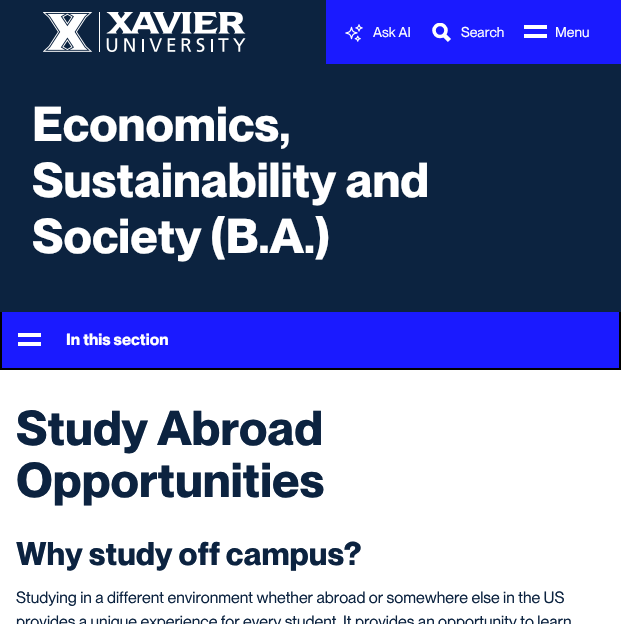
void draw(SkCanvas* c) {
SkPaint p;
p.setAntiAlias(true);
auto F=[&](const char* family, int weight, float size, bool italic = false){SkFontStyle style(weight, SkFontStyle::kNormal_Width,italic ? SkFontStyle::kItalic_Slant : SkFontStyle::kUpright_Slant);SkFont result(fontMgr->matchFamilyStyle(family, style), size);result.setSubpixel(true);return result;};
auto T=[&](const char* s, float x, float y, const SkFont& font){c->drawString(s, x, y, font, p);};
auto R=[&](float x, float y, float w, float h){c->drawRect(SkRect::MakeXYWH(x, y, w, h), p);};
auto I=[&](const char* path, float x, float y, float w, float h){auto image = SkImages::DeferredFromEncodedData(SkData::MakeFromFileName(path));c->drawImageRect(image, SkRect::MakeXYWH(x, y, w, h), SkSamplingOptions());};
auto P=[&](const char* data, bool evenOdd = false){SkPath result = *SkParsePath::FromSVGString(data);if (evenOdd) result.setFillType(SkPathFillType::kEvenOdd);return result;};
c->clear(0xffffffff);
p.setColor(0xff0c2340);
R(0,0,621,312);
I("1.png",43,12,203,40);
p.setColor(0xff1a1aff);
R(326,0,295,64);
I("2.png",345,24,18,18);
auto f1 = F("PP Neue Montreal",400,14);
p.setColor(0xffffffff);
T("Ask AI",373,37,f1);
c->save();
c->clipRect(SkRect::MakeXYWH(430,23,24,20));
p.setStroke(true);
p.setStrokeWidth(3.6);
c->drawCircle(440,30.5,6,p);
c->restore();
p.setStroke(false);
T("Search",461,37,f1);
p.setStroke(true);
p.setStrokeWidth(4.5);
c->drawPath(P("M444 35l5.5 5.5"),p);
p.setStroke(false);
R(524,25,23,4);
T("Menu",555,37,f1);
R(524,34,23,4);
auto f2 = F("PP Neue Montreal",700,48);
T("Economics,",32,141,f2);
T("Sustainability and",32,197,f2);
T("Society (B.A.)",32,253,f2);
p.setColor(0xff1a1aff);
R(2,312,617,56);
p.setColor(0xff000000);
R(619,312,2,58);
R(0,368,621,2);
R(0,312,2,58);
p.setColor(0xffffffff);
R(18,333,23,4);
auto f3 = F("PP Neue Montreal",700,16);
T("In this section",66,345,f3);
R(18,342,23,4);
p.setColor(0xff0c2340);
T("Study Abroad",16,445,f2);
T("Opportunities",16,497,f2);
auto f4 = F("PP Neue Montreal",700,32);
T("Why study off campus?",16,565,f4);
auto f5 = F("PP Neue Montreal",400,16);
T("Studying in a different environment whether abroad or somewhere else in the US",16,603,f5);
T("provides a unique experience for every student. It provides an opportunity to learn",16,627,f5);
}
